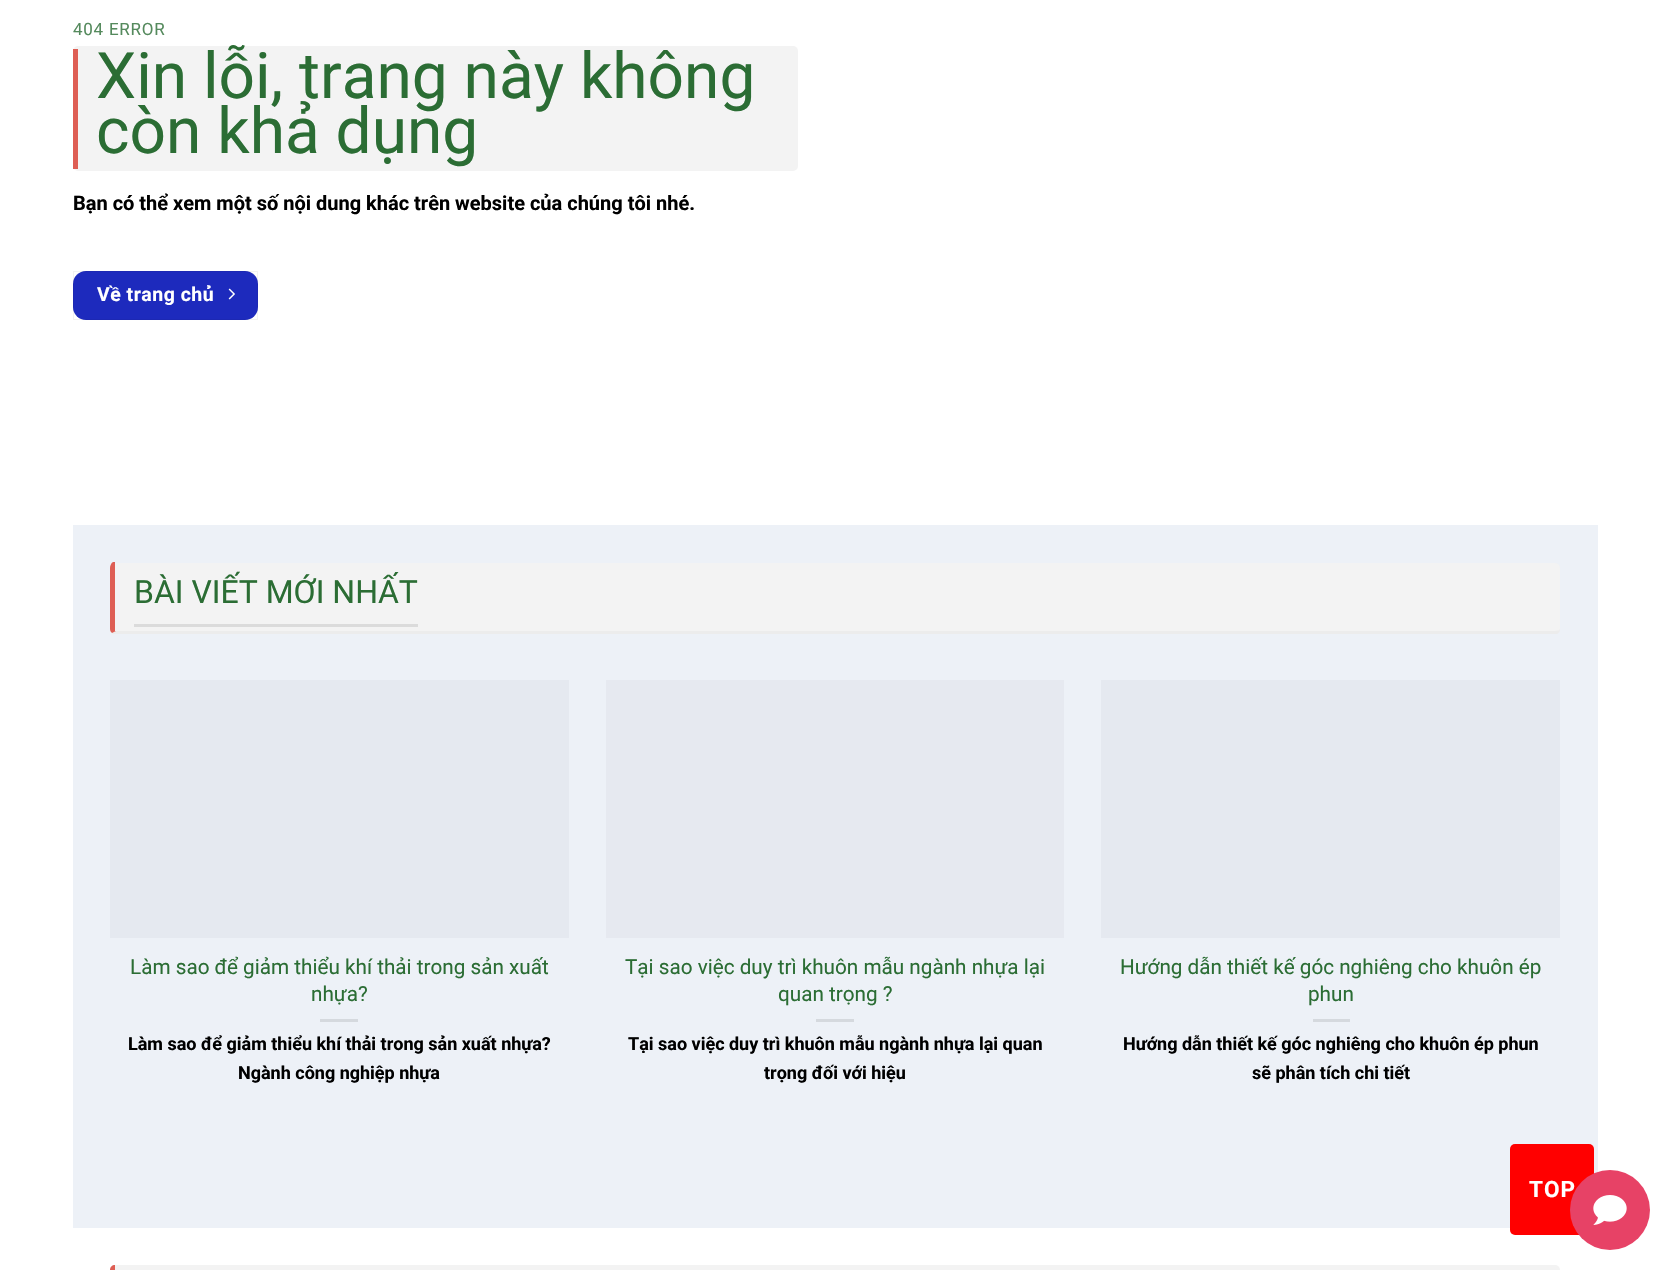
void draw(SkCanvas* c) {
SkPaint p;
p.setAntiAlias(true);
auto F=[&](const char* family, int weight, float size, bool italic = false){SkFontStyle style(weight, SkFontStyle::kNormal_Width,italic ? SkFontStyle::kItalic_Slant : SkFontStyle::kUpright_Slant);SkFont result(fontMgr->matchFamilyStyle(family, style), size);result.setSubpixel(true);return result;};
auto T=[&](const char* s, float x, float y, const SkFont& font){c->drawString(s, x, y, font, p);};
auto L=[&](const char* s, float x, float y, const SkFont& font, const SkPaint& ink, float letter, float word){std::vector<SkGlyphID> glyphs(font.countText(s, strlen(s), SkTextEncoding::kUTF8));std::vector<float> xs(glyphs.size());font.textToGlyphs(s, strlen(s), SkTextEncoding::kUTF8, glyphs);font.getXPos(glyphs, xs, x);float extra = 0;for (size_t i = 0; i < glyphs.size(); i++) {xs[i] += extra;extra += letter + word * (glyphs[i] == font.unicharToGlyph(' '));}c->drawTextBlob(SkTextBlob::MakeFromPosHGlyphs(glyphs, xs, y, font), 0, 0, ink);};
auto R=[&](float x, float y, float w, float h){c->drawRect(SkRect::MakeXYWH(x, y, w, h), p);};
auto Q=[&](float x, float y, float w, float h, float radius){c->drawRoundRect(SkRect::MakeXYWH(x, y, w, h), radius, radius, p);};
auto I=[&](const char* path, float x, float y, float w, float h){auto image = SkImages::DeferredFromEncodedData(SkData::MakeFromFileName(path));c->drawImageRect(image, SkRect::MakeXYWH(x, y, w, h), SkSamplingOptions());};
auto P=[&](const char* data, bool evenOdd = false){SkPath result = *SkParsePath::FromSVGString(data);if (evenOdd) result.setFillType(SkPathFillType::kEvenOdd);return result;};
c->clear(0xffffffff);
auto f1 = F("Roboto",400,17);
p.setColor(0xff558a5d);
L("404 ERROR",73,35,f1,p,.75,0);
p.setColor(0xfff3f3f3);
Q(73,46,725,125,5);
p.setColor(0xffde5e54);
R(73,49,5,120);
auto f2 = F("Roboto",400,64);
p.setColor(0xff2b6d34);
T("Xin lỗi, trang này không",96,98,f2);
T("còn khả dụng",96,153,f2);
auto f3 = F("Roboto",700,20);
p.setColor(0xff000000);
T("Bạn có thể xem một số nội dung khác trên website của chúng tôi nhé.",73,210,f3);
p.setColor(0xff1d2abd);
Q(73,271,185,49,13);
p.setStroke(true);
p.setStrokeWidth(1);
p.setColor(0x0d000000);
c->drawRect(SkRect::MakeXYWH(73.5,271.5,184,48),p);
auto f4 = F("Roboto",700,19.5);
p.setStroke(false);
p.setColor(0xffffffff);
L("Về trang chủ",97,301,f4,p,.5,0);
I("1.png",228,288,7,12);
p.setColor(0xffedf1f7);
R(73,525,1525,703);
p.setColor(0xfff3f3f3);
Q(110,563,1450,71,5);
p.setColor(0xffececec);
c->drawPath(P("M1557 634c2-1 3-3 3-5c0 1-2 2-5 2h-1439l-4 2l1 1z"),p);
p.setColor(0xffde5e54);
c->drawPath(P("M115 562v69h1l-4 2c-1-1-2-2-2-4v-61c0-2 1-5 3-6z"),p);
p.setColor(0xffdbdbdb);
R(134,624,284,3);
auto f5 = F("Roboto",400,32);
p.setColor(0xff2b6d34);
T("BÀI VIẾT MỚI NHẤT",134,603,f5);
p.setColor(0xffe5e9f0);
R(110,680,459,258);
auto f6 = F("Roboto",400,20.7);
p.setColor(0xff2b6d34);
T("Làm sao để giảm thiểu khí thải trong sản xuất",130,974,f6);
T("nhựa?",311,1001,f6);
p.setColor(0xffd5d9de);
R(320,1019,38,3);
auto f7 = F("Roboto",700,18);
p.setColor(0xff000000);
T("Làm sao để giảm thiểu khí thải trong sản xuất nhựa?",128,1050,f7);
T("Ngành công nghiệp nhựa",238,1079,f7);
p.setColor(0xffe6e9f0);
R(606,680,458,258);
p.setColor(0xff2b6d34);
T("Tại sao việc duy trì khuôn mẫu ngành nhựa lại",625,974,f6);
T("quan trọng ?",778,1001,f6);
p.setColor(0xffd5d9de);
R(816,1019,38,3);
p.setColor(0xff000000);
T("Tại sao việc duy trì khuôn mẫu ngành nhựa lại quan",628,1050,f7);
T("trọng đối với hiệu",764,1079,f7);
p.setColor(0xffe5e9f0);
R(1101,680,459,258);
p.setColor(0xff2b6d34);
T("Hướng dẫn thiết kế góc nghiêng cho khuôn ép",1120,974,f6);
T("phun",1308,1001,f6);
p.setColor(0xffd5d9de);
R(1313,1019,37,3);
p.setColor(0xff000000);
T("Hướng dẫn thiết kế góc nghiêng cho khuôn ép phun",1123,1050,f7);
T("sẽ phân tích chi tiết",1252,1079,f7);
p.setColor(0xfff3f3f3);
Q(110,1265,1450,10,5);
p.setColor(0xffde5e54);
c->drawPath(P("M115 1265c-3 0-5 2-5 5v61c0 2 1 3 2 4l3-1z"),p);
p.setColor(0xffff0000);
Q(1510,1144,84,91,5);
auto f8 = F("Roboto",700,22.5);
p.setColor(0xffffffff);
L("TOP",1529,1197,f8,p,1,0);
p.setColor(0xffe74266);
c->drawCircle(1610,1210,40,p);
I("2.png",1593,1195,34,30);
}
